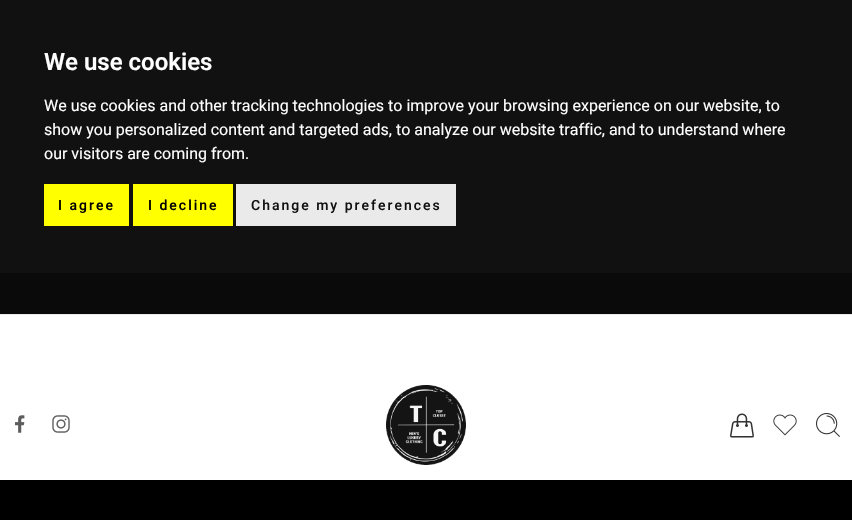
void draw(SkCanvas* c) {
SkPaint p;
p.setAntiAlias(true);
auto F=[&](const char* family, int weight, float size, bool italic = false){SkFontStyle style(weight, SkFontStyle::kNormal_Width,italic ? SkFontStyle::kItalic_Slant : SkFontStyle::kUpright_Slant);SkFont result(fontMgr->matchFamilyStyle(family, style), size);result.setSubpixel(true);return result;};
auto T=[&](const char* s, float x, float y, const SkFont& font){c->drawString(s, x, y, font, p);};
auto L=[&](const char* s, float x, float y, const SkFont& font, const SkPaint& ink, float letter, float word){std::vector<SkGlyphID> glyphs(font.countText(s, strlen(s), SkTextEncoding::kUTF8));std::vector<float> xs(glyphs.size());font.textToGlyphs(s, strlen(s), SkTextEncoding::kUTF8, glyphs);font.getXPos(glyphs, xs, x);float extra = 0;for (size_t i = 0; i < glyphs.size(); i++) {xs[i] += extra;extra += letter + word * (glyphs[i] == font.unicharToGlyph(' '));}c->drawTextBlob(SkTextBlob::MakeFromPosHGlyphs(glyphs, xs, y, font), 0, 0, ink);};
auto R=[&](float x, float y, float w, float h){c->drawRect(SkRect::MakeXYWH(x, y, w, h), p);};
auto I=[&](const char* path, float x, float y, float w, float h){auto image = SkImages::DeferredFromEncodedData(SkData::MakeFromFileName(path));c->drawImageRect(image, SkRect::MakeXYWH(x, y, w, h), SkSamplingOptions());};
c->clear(0xffffffff);
p.setColor(0xff111111);
R(0,0,852,273);
auto f1 = F("Roboto",600,24);
p.setColor(0xffffffff);
T("We use cookies",44,70,f1);
auto f2 = F("Roboto",400,16);
T("We use cookies and other tracking technologies to improve your browsing experience on our website, to",44,111,f2);
T("show you personalized content and targeted ads, to analyze our website traffic, and to understand where",44,135,f2);
T("our visitors are coming from.",44,159,f2);
p.setColor(0xffffff00);
R(44,184,85,42);
auto f3 = F("Roboto",500,14);
p.setColor(0xff000000);
L("I agree",58,210,f3,p,2,0);
p.setColor(0xffffff00);
R(133,184,100,42);
p.setColor(0xff000000);
L("I decline",148,210,f3,p,2,0);
p.setColor(0xffeaeaea);
R(236,184,220,42);
p.setColor(0xff111111);
L("Change my preferences",251,210,f3,p,2,0);
p.setColor(0xff0a0a0a);
R(0,273,852,41);
p.setColor(0xffececec);
R(0,314,852,1);
I("1.png",15,415,10,18);
I("2.png",52,415,18,18);
I("3.png",386,385,80,80);
I("4.png",730,413,24,25);
I("5.png",773,414,24,22);
I("6.png",816,413,24,24);
p.setColor(0xff000000);
R(0,480,852,40);
}
